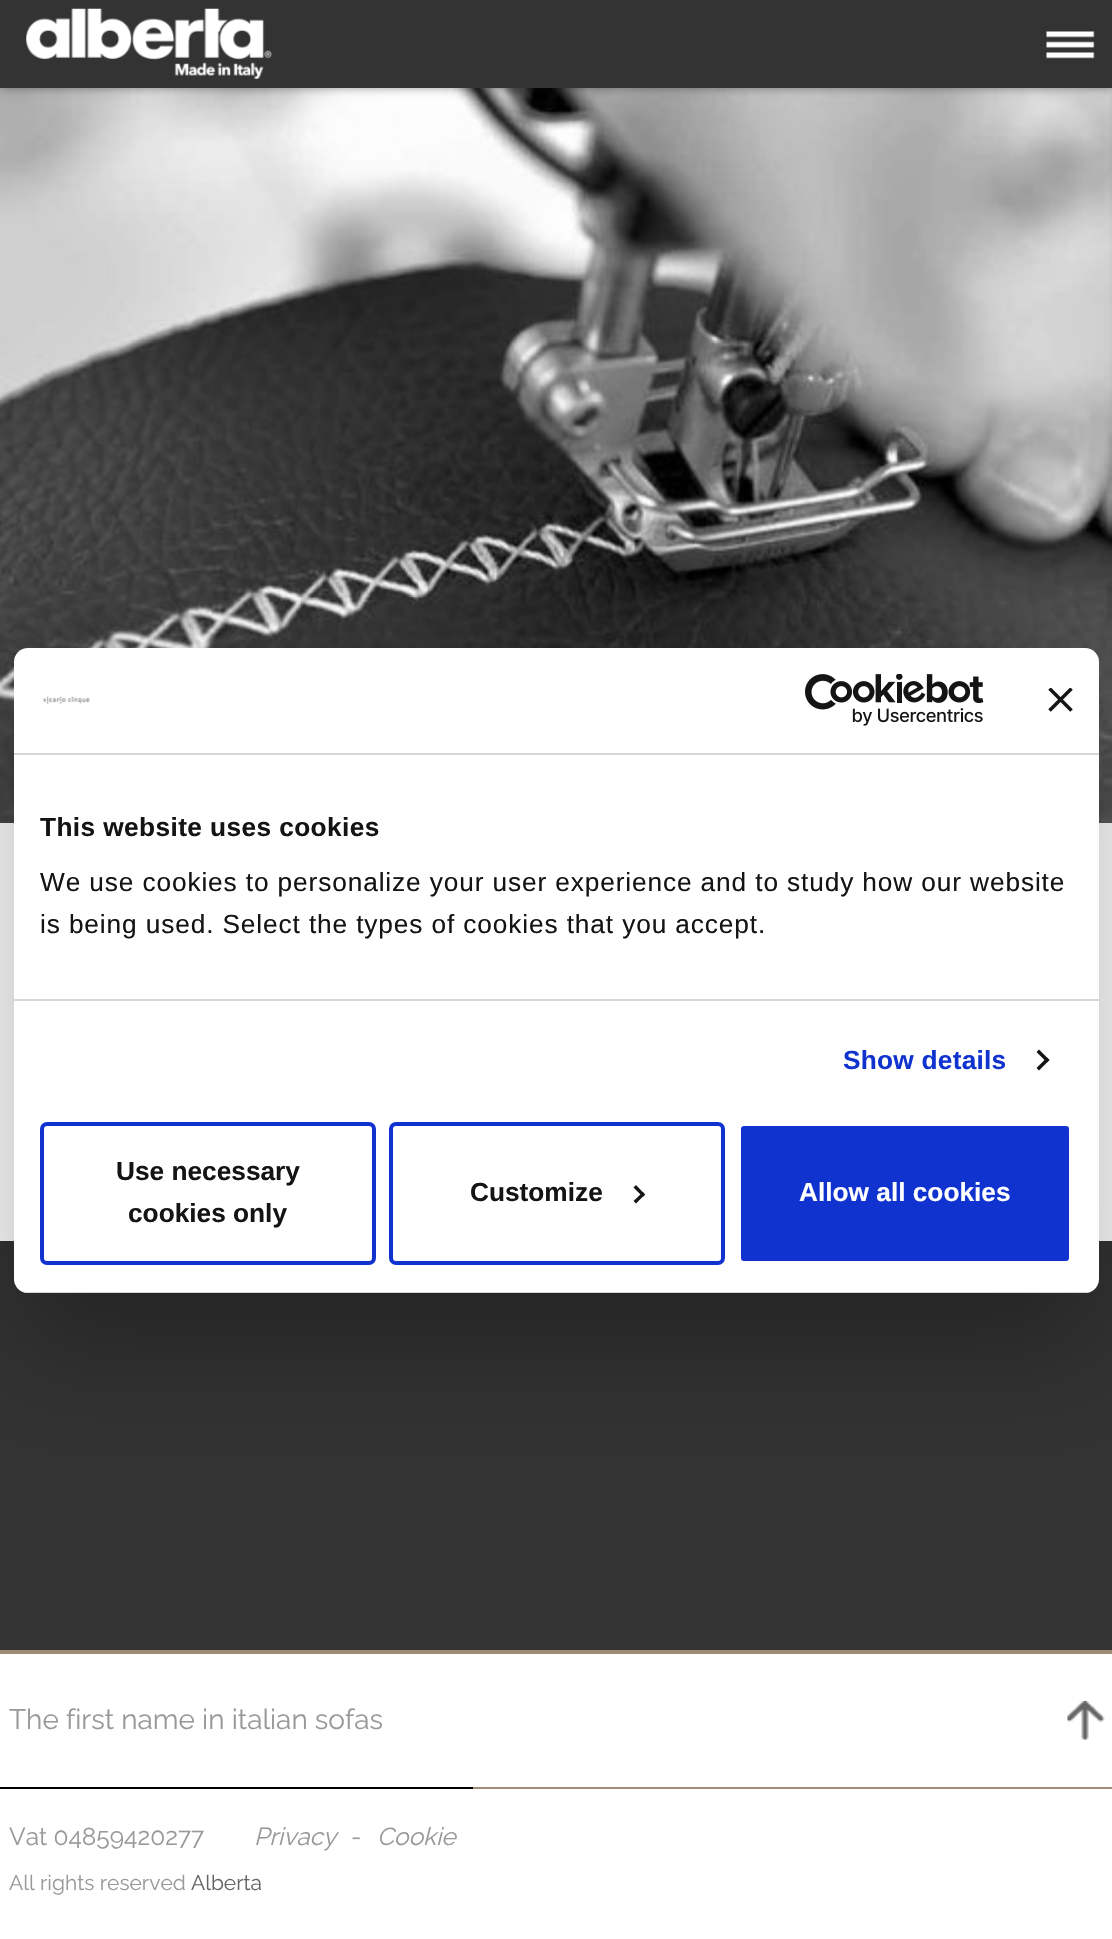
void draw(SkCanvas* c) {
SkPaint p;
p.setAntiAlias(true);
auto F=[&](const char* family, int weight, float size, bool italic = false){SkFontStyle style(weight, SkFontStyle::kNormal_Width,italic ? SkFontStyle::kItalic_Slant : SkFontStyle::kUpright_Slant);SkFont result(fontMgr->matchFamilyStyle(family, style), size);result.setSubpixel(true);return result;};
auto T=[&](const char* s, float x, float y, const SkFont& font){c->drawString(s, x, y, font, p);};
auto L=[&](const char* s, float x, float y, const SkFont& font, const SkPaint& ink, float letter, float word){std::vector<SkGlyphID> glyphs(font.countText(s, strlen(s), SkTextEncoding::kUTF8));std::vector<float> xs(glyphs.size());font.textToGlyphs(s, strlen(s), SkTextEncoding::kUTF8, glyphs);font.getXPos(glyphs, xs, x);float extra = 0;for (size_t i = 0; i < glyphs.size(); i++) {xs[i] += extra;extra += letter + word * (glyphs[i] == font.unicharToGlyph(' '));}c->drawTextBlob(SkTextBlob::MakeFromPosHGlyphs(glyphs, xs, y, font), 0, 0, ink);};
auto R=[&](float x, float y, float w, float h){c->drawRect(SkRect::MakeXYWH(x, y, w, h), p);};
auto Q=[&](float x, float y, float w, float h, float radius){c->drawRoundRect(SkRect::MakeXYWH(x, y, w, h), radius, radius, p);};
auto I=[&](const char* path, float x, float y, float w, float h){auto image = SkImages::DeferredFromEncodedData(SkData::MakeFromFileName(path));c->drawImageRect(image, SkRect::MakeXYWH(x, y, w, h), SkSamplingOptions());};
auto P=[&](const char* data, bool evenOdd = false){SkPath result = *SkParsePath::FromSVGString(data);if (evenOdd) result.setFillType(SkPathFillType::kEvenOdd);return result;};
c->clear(0xff333333);
I("3.png",0,88,1112,735);
p.setColor(0x66000000);
p.setMaskFilter(SkMaskFilter::MakeBlur(kNormal_SkBlurStyle, 4.5));
c->drawRect(SkRect::MakeXYWH(0,0,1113,88),p);
p.setMaskFilter(nullptr);
p.setColor(0xff333333);
R(0,0,1112,88);
I("1.png",26,8,246,71);
I("2.png",1046,31,49,28);
p.setColor(0xffffffff);
R(0,823,1112,418);
p.setColor(0x4d000000);
p.setMaskFilter(SkMaskFilter::MakeBlur(kNormal_SkBlurStyle, 59.5));
c->drawRoundRect(SkRect::MakeXYWH(14,704,1085,645),14,14,p);
p.setMaskFilter(nullptr);
p.setColor(0xffffffff);
Q(14,648,1085,645,14);
p.setColor(0xffd6d6d6);
R(14,753,1085,2);
I("4.png",43,696,47,9);
I("5.png",805,674,179,52);
I("6.png",1048,688,25,24);
R(14,999,1085,2);
auto f1 = F("Liberation Sans",700,26.25);
p.setColor(0xff141414);
L("This website uses cookies",40,836,f1,p,.4,0);
auto f2 = F("Liberation Sans",400,26.25);
L("We use cookies to personalize your user experience and to study how our website",40,891,f2,p,.88,0);
L("is being used. Select the types of cookies that you accept.",40,933,f2,p,.88,0);
p.setColor(0xff1032cf);
L("Show details",843,1069,f1,p,.25,0);
p.setColor(0xff141414);
c->drawPath(P("M1039 1049.5l10.5 10.5l-2.5 2.5l-10.5-10.5z"),p);
c->drawPath(P("M1047 1057.5l2.5 2.5l-10.5 10.5l-2.5-2.5z"),p);
c->save();
c->clipPath(P("M28 648h1057c7.5 0 14 6.5 14 14v617c0 7.5-6.5 14-14 14h-1057c-7.5 0-14-6.5-14-14v-617c0-7.5 6.5-14 14-14z"),true);
p.setColor(0xffd6d6d6);
R(23,1292,1067,1);
c->restore();
p.setStroke(true);
p.setStrokeWidth(4);
p.setColor(0xff1032cf);
c->drawRoundRect(SkRect::MakeXYWH(42,1124,332,139),5,5,p);
p.setStroke(false);
p.setColor(0xff141414);
T("Use necessary",116,1180,f1);
T("cookies only",128,1222,f1);
p.setStroke(true);
p.setColor(0xff1032cf);
c->drawRoundRect(SkRect::MakeXYWH(391,1124,332,139),5,5,p);
p.setStroke(false);
p.setColor(0xff141414);
T("Customize",470,1201,f1);
c->drawPath(P("M636 1185l9 9.5l-2 2.5l-9.5-9.5z"),p);
c->drawPath(P("M643 1192l2 2.5l-9 9l-2.5-2.5z"),p);
p.setColor(0xff1032cf);
c->drawRoundRect(SkRect::MakeXYWH(739,1124,332,139),5,5,p);
p.setStroke(true);
p.setColor(0xffffffff);
c->drawRoundRect(SkRect::MakeXYWH(739,1124,332,139),5,5,p);
p.setStroke(false);
T("Allow all cookies",799,1201,f1);
R(0,1654,1112,285);
p.setColor(0xff9f8c76);
R(0,1650,1112,4);
R(473,1787,639,2);
auto f3 = F("Raleway",400,28);
p.setColor(0xff999999);
T("The first name in italian sofas",9,1729,f3);
I("7.png",1067,1701,38,39);
p.setColor(0xff000000);
R(0,1787,473,2);
auto f4 = F("Raleway",400,24.5);
p.setColor(0xff999999);
T("Vat 04859420277",9,1845,f4);
auto f5 = F("Raleway",400,24.5,true);
T("Privacy",254,1845,f5);
T("-",351,1845,f4);
T("Cookie",377,1845,f5);
auto f6 = F("Raleway",400,21);
T("All rights reserved",9,1890,f6);
p.setColor(0xff666666);
T("Alberta",191,1890,f6);
}
